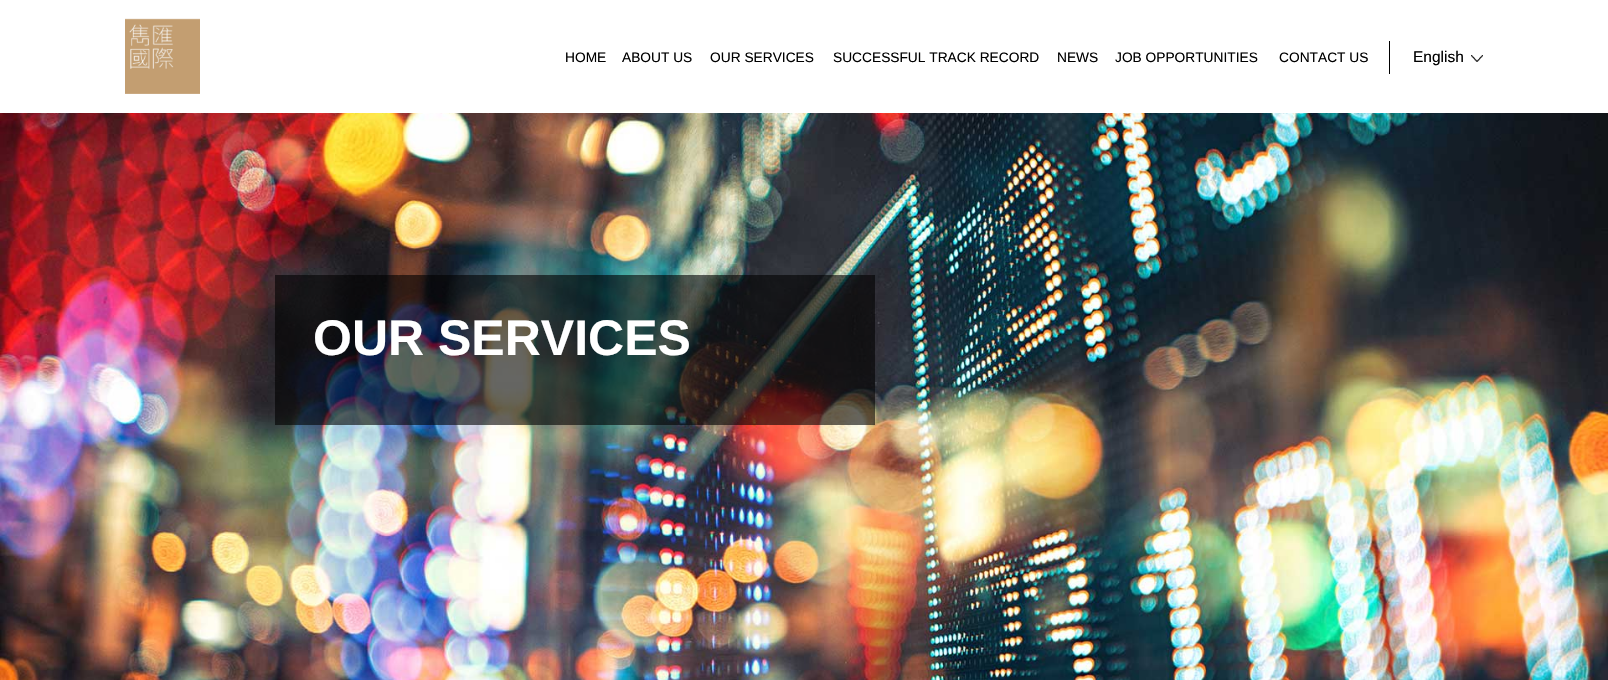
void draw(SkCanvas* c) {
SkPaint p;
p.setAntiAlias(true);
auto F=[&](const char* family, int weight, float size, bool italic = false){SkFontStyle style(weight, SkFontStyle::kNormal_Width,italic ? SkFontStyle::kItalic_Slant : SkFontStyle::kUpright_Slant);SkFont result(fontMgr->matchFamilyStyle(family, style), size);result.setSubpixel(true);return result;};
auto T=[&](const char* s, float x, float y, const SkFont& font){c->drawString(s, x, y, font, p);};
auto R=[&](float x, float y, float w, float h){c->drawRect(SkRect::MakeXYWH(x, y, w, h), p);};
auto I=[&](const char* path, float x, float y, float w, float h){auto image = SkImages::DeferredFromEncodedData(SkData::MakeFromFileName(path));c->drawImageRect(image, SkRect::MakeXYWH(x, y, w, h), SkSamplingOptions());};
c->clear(0xffffffff);
I("1.png",125,18,75,76);
auto f1 = F("Liberation Sans",400,13.75);
p.setColor(0xff000000);
T("HOME",565,62,f1);
T("ABOUT US",622,62,f1);
T("OUR SERVICES",710,62,f1);
T("SUCCESSFUL TRACK RECORD",833,62,f1);
T("NEWS",1057,62,f1);
T("JOB OPPORTUNITIES",1115,62,f1);
T("CONTACT US",1279,62,f1);
R(1389,41,1,33);
auto f2 = F("Liberation Sans",400,15.5);
T("English",1413,62,f2);
I("2.png",1471,55,12,7);
I("3.png",0,113,1608,567);
p.setColor(0x99000000);
R(275,275,600,150);
auto f3 = F("Liberation Sans",700,50);
p.setColor(0xffffffff);
T("OUR SERVICES",313,355,f3);
}
